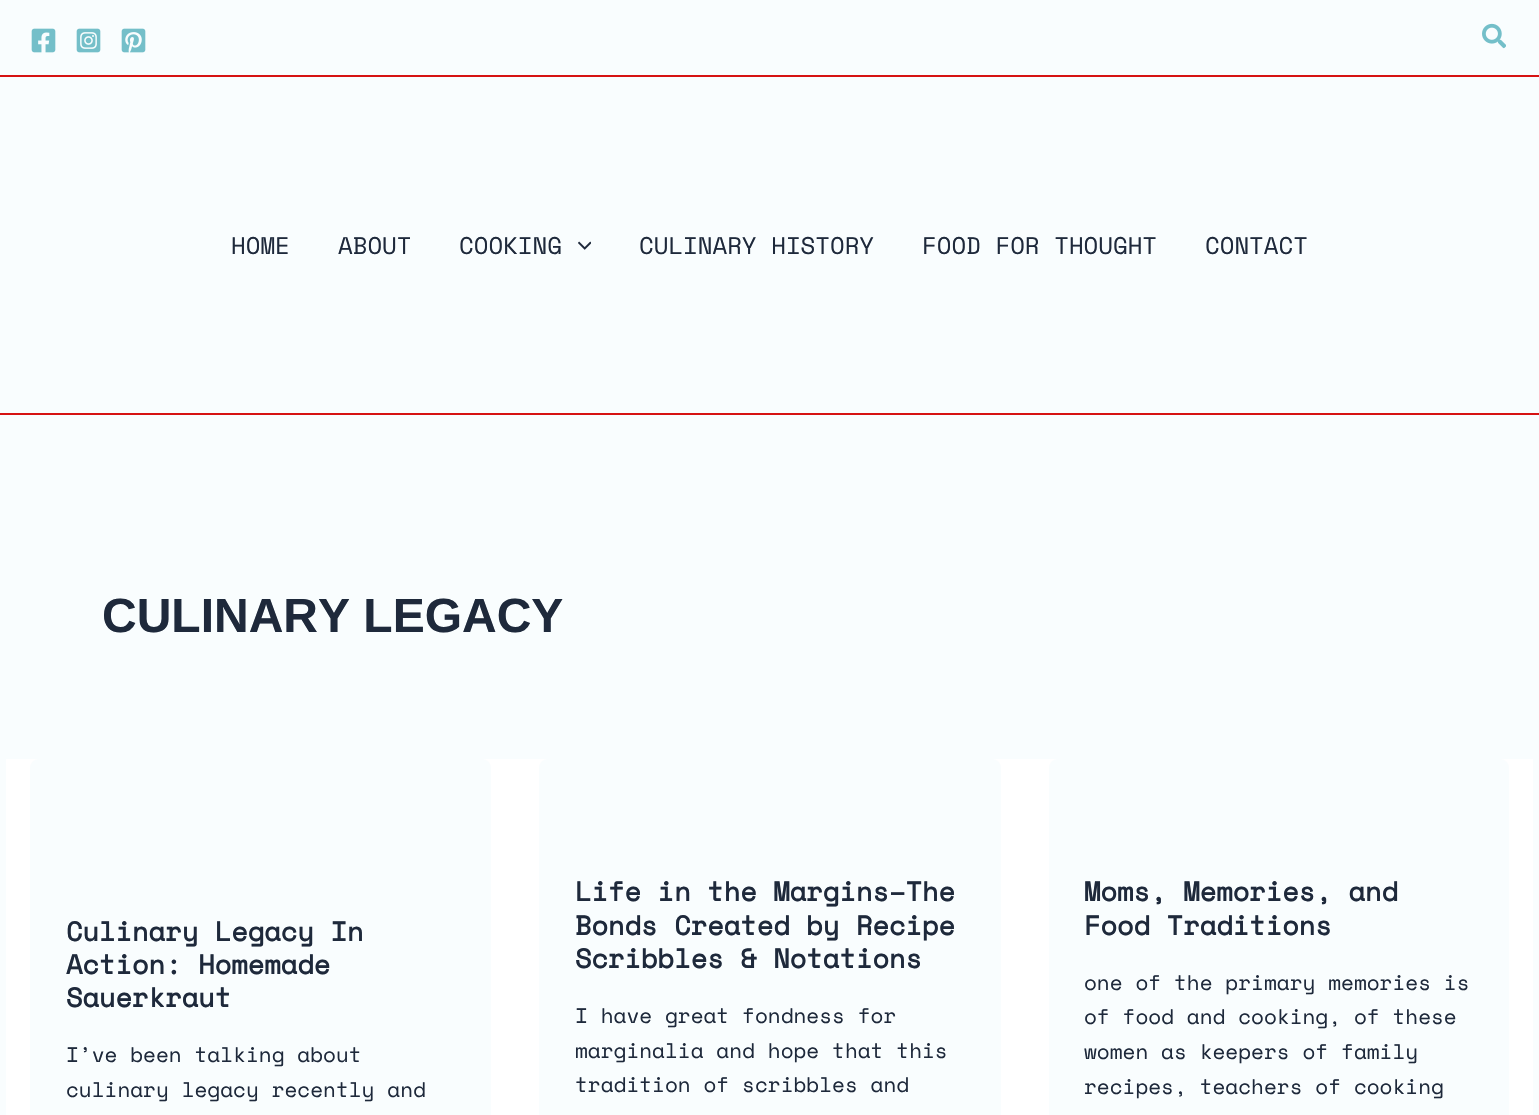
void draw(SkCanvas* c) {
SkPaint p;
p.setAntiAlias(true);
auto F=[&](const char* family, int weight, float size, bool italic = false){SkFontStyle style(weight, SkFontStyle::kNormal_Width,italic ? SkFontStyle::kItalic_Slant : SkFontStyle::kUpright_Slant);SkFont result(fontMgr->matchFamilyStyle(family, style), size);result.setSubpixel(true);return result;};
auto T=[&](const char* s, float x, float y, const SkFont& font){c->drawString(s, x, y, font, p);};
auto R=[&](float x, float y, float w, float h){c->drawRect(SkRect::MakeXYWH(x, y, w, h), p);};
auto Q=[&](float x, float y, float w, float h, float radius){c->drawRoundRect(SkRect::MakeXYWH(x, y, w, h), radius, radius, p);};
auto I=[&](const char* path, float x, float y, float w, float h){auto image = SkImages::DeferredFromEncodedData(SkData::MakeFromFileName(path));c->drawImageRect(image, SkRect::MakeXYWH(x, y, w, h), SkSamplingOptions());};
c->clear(0xfff9fdfe);
p.setColor(0xffd61212);
R(0,75,1539,2);
I("1.png",31,28,25,25);
I("2.png",76,28,25,25);
I("3.png",121,28,25,25);
I("4.png",1482,23,24,26);
R(0,413,1539,2);
auto f1 = F("Space Mono",400,24);
p.setColor(0xff1e293b);
T("HOME",231,254,f1);
T("ABOUT",338,254,f1);
T("COOKING",459,254,f1);
I("5.png",578,241,13,9);
T("CULINARY HISTORY",639,254,f1);
T("FOOD FOR THOUGHT",922,254,f1);
T("CONTACT",1205,254,f1);
auto f2 = F("Liberation Sans",700,48);
T("CULINARY LEGACY",102,632,f2);
p.setColor(0xffffffff);
R(6,759,1527,356);
p.setColor(0xfff9fdfe);
Q(30,759,461,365,9);
auto f3 = F("Space Mono",700,27);
p.setColor(0xff1e293b);
T("Culinary Legacy In",66,941,f3);
T("Action: Homemade",66,974,f3);
T("Sauerkraut",66,1007,f3);
auto f4 = F("Space Mono",400,21);
T("I’ve been talking about",66,1062,f4);
T("culinary legacy recently and",66,1097,f4);
p.setColor(0xfff9fdfe);
Q(539,759,462,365,9);
p.setColor(0xff1e293b);
T("Life in the Margins–The",575,901,f3);
T("Bonds Created by Recipe",575,935,f3);
T("Scribbles & Notations",575,968,f3);
T("I have great fondness for",575,1023,f4);
T("marginalia and hope that this",575,1058,f4);
T("tradition of scribbles and",575,1092,f4);
p.setColor(0xfff9fdfe);
Q(1049,759,460,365,9);
p.setColor(0xff1e293b);
T("Moms, Memories, and",1084,901,f3);
T("Food Traditions",1084,935,f3);
T("one of the primary memories is",1084,990,f4);
T("of food and cooking, of these",1084,1024,f4);
T("women as keepers of family",1084,1059,f4);
T("recipes, teachers of cooking",1084,1094,f4);
}
